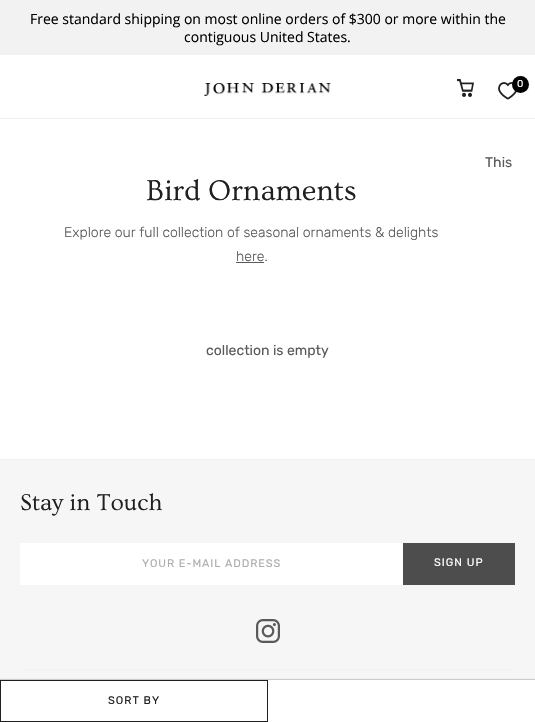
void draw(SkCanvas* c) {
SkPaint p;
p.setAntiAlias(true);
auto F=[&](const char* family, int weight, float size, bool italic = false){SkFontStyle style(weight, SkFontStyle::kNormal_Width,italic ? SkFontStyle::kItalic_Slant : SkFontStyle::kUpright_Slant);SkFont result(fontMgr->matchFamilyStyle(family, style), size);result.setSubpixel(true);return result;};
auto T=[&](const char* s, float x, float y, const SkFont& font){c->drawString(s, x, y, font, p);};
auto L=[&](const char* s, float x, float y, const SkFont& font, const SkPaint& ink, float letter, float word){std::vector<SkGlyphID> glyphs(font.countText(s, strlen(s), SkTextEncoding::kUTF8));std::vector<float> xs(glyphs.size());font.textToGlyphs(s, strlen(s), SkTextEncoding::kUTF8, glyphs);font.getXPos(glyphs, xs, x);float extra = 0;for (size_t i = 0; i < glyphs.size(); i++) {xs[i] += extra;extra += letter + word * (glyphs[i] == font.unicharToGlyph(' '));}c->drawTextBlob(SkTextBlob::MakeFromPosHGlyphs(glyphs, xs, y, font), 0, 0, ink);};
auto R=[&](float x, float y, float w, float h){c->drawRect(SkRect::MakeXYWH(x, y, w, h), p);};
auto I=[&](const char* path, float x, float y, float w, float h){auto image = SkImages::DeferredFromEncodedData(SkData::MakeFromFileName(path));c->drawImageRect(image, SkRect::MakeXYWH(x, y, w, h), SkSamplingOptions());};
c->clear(0xffffffff);
p.setColor(0xfff2f2f2);
R(0,0,535,55);
auto f1 = F("Open Sans",400,14);
p.setColor(0xff000000);
T("Free standard shipping on most online orders of $300 or more within the",30,24,f1);
T("contiguous United States.",184,42,f1);
p.setColor(0xfff2f2f2);
R(0,118,535,1);
I("1.png",204,83,127,13);
I("2.png",457,79,17,18);
I("3.png",498,82,19,18);
p.setColor(0xff000000);
c->drawCircle(520.5,84.5,8.5,p);
auto f2 = F("Rubik",400,10);
p.setColor(0xffffffff);
T("0",517,87,f2);
auto f3 = F("Rubik",400,14);
p.setColor(0xff5a5a5a);
T("This",485,167,f3);
T("collection is empty",206,355,f3);
auto f4 = F("Ovo",400,30);
p.setColor(0xff202020);
T("Bird Ornaments",146,200,f4);
auto f5 = F("Rubik",300,14);
p.setColor(0xff5a5a5a);
T("Explore our full collection of seasonal ornaments & delights",64,237,f5);
T("here.",236,261,f5);
R(236,262,28,1);
p.setColor(0xfff6f6f6);
R(0,460,535,220);
p.setColor(0x33202020);
p.setMaskFilter(SkMaskFilter::MakeBlur(kNormal_SkBlurStyle, .5));
c->drawRect(SkRect::MakeXYWH(0,679,535,42),p);
p.setMaskFilter(nullptr);
p.setColor(0xffffffff);
R(1,680,534,42);
p.setStroke(true);
p.setStrokeWidth(1);
p.setColor(0xff202020);
c->drawRect(SkRect::MakeXYWH(.5,680.5,267,41),p);
auto f6 = F("Rubik",400,11);
p.setStroke(false);
L("SORT BY",108,704,f6,p,1,0);
p.setColor(0xfff0f0f0);
R(0,459,535,1);
p.setColor(0xfff2f2f2);
R(20,669,495,1);
auto f7 = F("Ovo",400,24);
p.setColor(0xff202020);
T("Stay in Touch",20,510,f7);
p.setColor(0xffffffff);
R(20,543,383,42);
p.setColor(0xffadadad);
L("YOUR E-MAIL ADDRESS",142,567,f6,p,.9,0);
p.setColor(0xff4d4d4d);
R(403,543,112,42);
p.setColor(0xffffffff);
L("SIGN UP",434,566,f6,p,1,0);
I("4.png",256,619,24,24);
}
